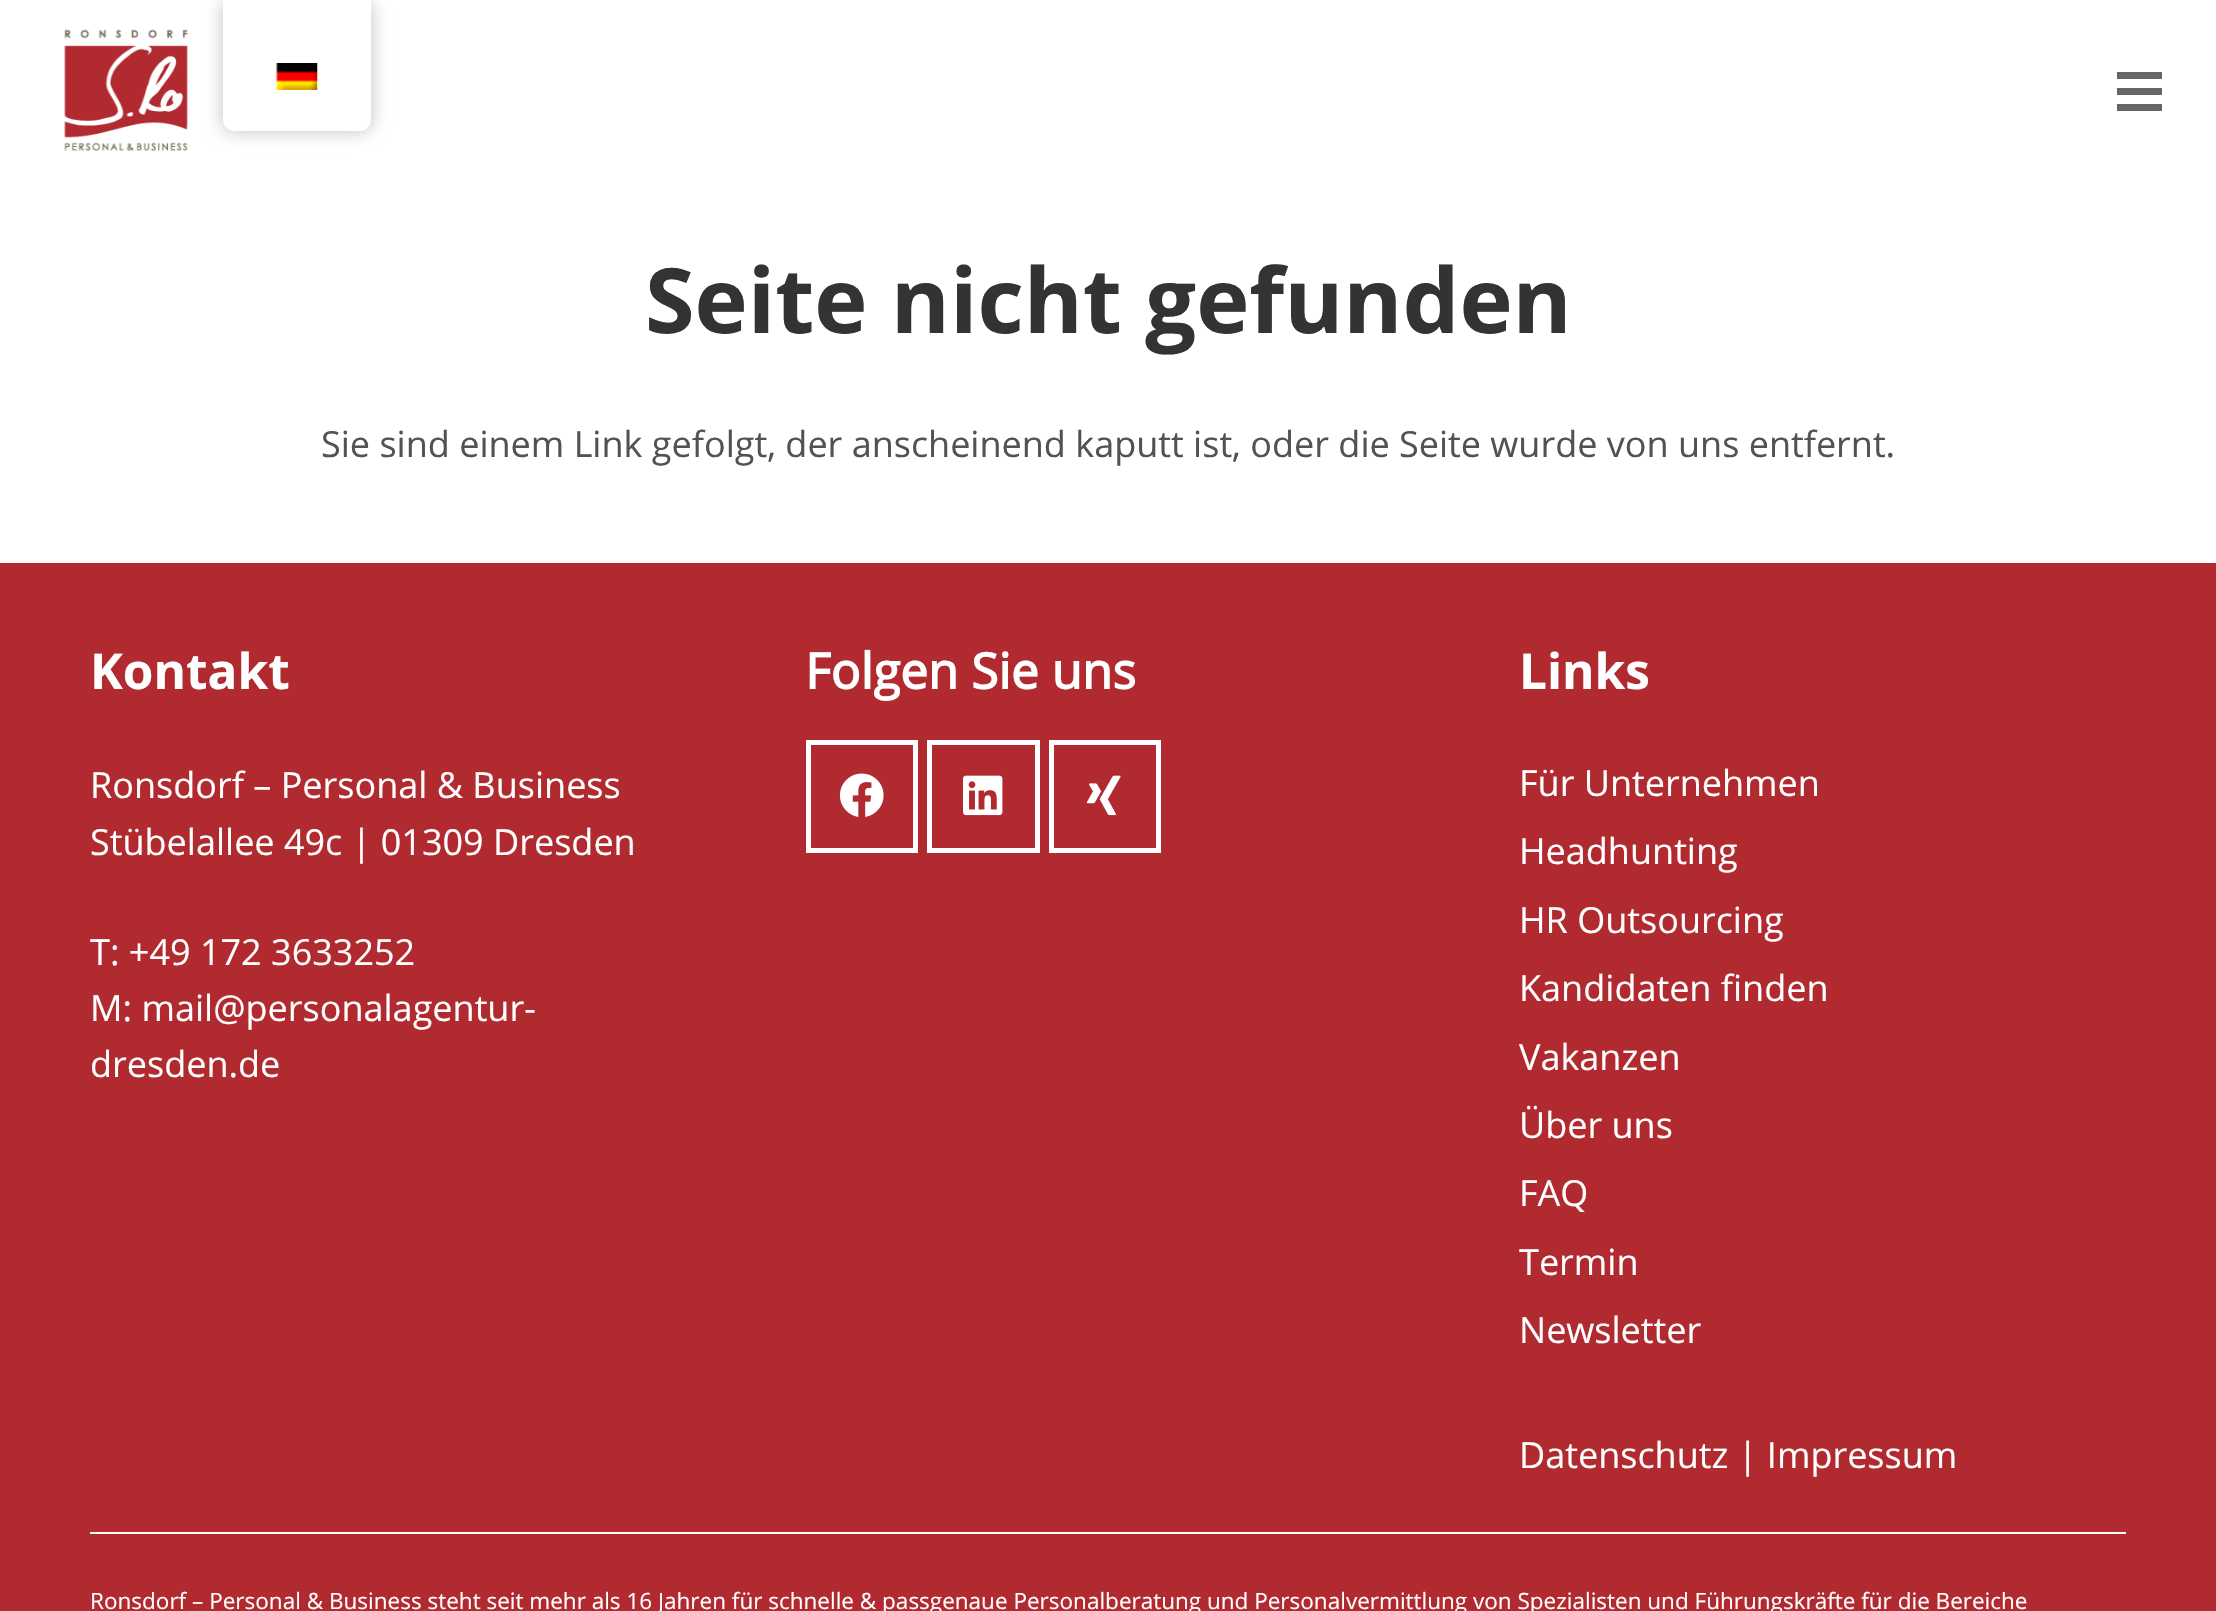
void draw(SkCanvas* c) {
SkPaint p;
p.setAntiAlias(true);
auto F=[&](const char* family, int weight, float size, bool italic = false){SkFontStyle style(weight, SkFontStyle::kNormal_Width,italic ? SkFontStyle::kItalic_Slant : SkFontStyle::kUpright_Slant);SkFont result(fontMgr->matchFamilyStyle(family, style), size);result.setSubpixel(true);return result;};
auto T=[&](const char* s, float x, float y, const SkFont& font){c->drawString(s, x, y, font, p);};
auto R=[&](float x, float y, float w, float h){c->drawRect(SkRect::MakeXYWH(x, y, w, h), p);};
auto I=[&](const char* path, float x, float y, float w, float h){auto image = SkImages::DeferredFromEncodedData(SkData::MakeFromFileName(path));c->drawImageRect(image, SkRect::MakeXYWH(x, y, w, h), SkSamplingOptions());};
auto P=[&](const char* data, bool evenOdd = false){SkPath result = *SkParsePath::FromSVGString(data);if (evenOdd) result.setFillType(SkPathFillType::kEvenOdd);return result;};
c->clear(0xffffffff);
p.setColor(0x40000000);
p.setMaskFilter(SkMaskFilter::MakeBlur(kNormal_SkBlurStyle, 9));
c->drawRoundRect(SkRect::MakeXYWH(223,0,148,131),11,11,p);
p.setMaskFilter(nullptr);
p.setColor(0xffffffff);
c->drawPath(P("M223 0h148v120c0 6-5 11-11 11h-126c-6 0-11-5-11-11z"),p);
I("1.png",276,63,42,27);
I("2.png",64,29,124,122);
p.setColor(0xff666666);
R(2117,88,45,7);
R(2117,72,45,7);
R(2117,104,45,7);
auto f1 = F("Open Sans",700,90);
p.setColor(0xff333333);
T("Seite nicht gefunden",645,333,f1);
auto f2 = F("Open Sans",400,36);
p.setColor(0xff525252);
T("Sie sind einem Link gefolgt, der anscheinend kaputt ist, oder die Seite wurde von uns entfernt.",321,457,f2);
p.setColor(0xffb02a30);
R(0,563,2216,1048);
auto f3 = F("Open Sans",700,49.5);
p.setColor(0xffffffff);
T("Kontakt",90,689,f3);
T("Ronsdorf – Personal & Business",90,798,f2);
T("Stübelallee 49c | 01309 Dresden",90,855,f2);
T("T: +49 172 3633252",90,965,f2);
T("M: mail@personalagentur-",90,1021,f2);
T("dresden.de",90,1077,f2);
auto f4 = F("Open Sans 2",700,49.5);
T("Folgen Sie uns",805,689,f4);
p.setStroke(true);
p.setStrokeWidth(5);
c->drawRect(SkRect::MakeXYWH(808.5,742.5,107,108),p);
I("3.png",839,773,45,44);
c->drawRect(SkRect::MakeXYWH(929.5,742.5,108,108),p);
I("4.png",963,775,40,41);
c->drawRect(SkRect::MakeXYWH(1051.5,742.5,107,108),p);
I("5.png",1086,775,35,41);
p.setStroke(false);
T("Links",1519,689,f3);
T("Für Unternehmen",1519,796,f2);
T("Headhunting",1519,864,f2);
T("HR Outsourcing",1519,933,f2);
T("Kandidaten finden",1519,1001,f2);
T("Vakanzen",1519,1070,f2);
T("Über uns",1519,1138,f2);
T("FAQ",1519,1206,f2);
T("Termin",1519,1275,f2);
T("Newsletter",1519,1343,f2);
T("Datenschutz | Impressum",1519,1468,f2);
R(90,1532,2036,2);
auto f5 = F("Open Sans",400,22.5);
T("Ronsdorf – Personal & Business steht seit mehr als 16 Jahren für schnelle & passgenaue Personalberatung und Personalvermittlung von Spezialisten und Führungskräfte für die Bereiche",90,1609,f5);
}
